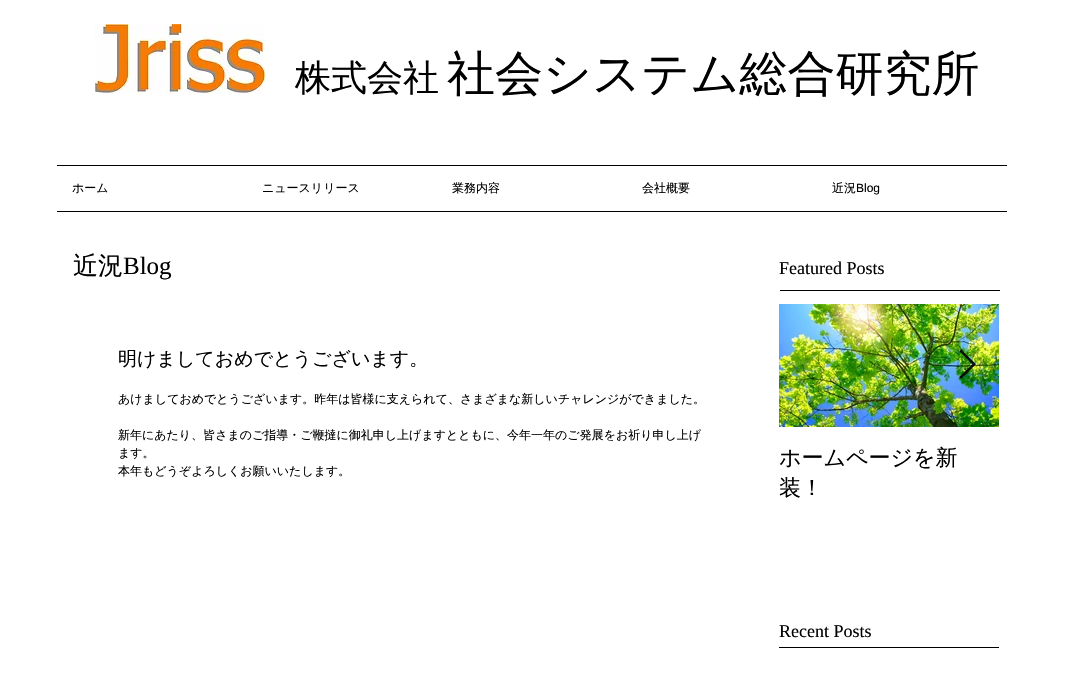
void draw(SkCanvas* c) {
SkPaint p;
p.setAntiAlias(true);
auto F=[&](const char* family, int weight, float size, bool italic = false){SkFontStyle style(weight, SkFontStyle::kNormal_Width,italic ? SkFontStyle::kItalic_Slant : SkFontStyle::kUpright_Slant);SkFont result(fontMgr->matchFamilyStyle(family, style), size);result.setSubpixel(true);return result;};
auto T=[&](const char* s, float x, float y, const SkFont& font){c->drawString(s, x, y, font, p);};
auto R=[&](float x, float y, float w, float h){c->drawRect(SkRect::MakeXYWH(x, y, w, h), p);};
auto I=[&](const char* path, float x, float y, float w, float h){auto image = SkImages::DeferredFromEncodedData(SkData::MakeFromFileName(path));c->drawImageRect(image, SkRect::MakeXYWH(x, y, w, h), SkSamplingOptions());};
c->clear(0xffffffff);
I("1.png",95,24,170,70);
auto f1 = F("WenQuanYi Zen Hei",500,36);
p.setColor(0xff000000);
T("株式会社",295,90,f1);
auto f2 = F("WenQuanYi Zen Hei",500,48);
T("社会システム総合研究所",447,90,f2);
R(57,165,950,1);
R(57,211,950,1);
auto f3 = F("WenQuanYi Zen Hei",500,12);
T("ホーム",72,192,f3);
T("ニュースリリース",262,192,f3);
T("業務内容",452,192,f3);
T("会社概要",642,192,f3);
T("近況",832,192,f3);
auto f4 = F("Liberation Sans",400,12);
T("Blog",856,192,f4);
auto f5 = F("WenQuanYi Zen Hei",500,25);
T("近況",73,274,f5);
auto f6 = F("Liberation Serif",400,25);
T("Blog",123,274,f6);
auto f7 = F("Liberation Serif",400,18);
T("Featured Posts",779,274,f7);
R(780,290,220,1);
auto f8 = F("WenQuanYi Zen Hei",500,19);
T("明けましておめでとうございます。",118,365,f8);
T("あけましておめでとうございます。昨年は皆様に支えられて、さまざまな新しいチャレンジができました。",118,403,f3);
T("新年にあたり、皆さまのご指導・ご鞭撻に御礼申し上げますとともに、今年一年のご発展をお祈り申し上げ",118,439,f3);
T("ます。",118,457,f3);
T("本年もどうぞよろしくお願いいたします。",118,475,f3);
I("3.png",779,304,220,123);
I("2.png",959,350,17,29);
auto f9 = F("WenQuanYi Zen Hei",500,22);
T("ホームページを新",779,465,f9);
T("装！",779,495,f9);
T("Recent Posts",779,637,f7);
R(779,647,220,1);
}
